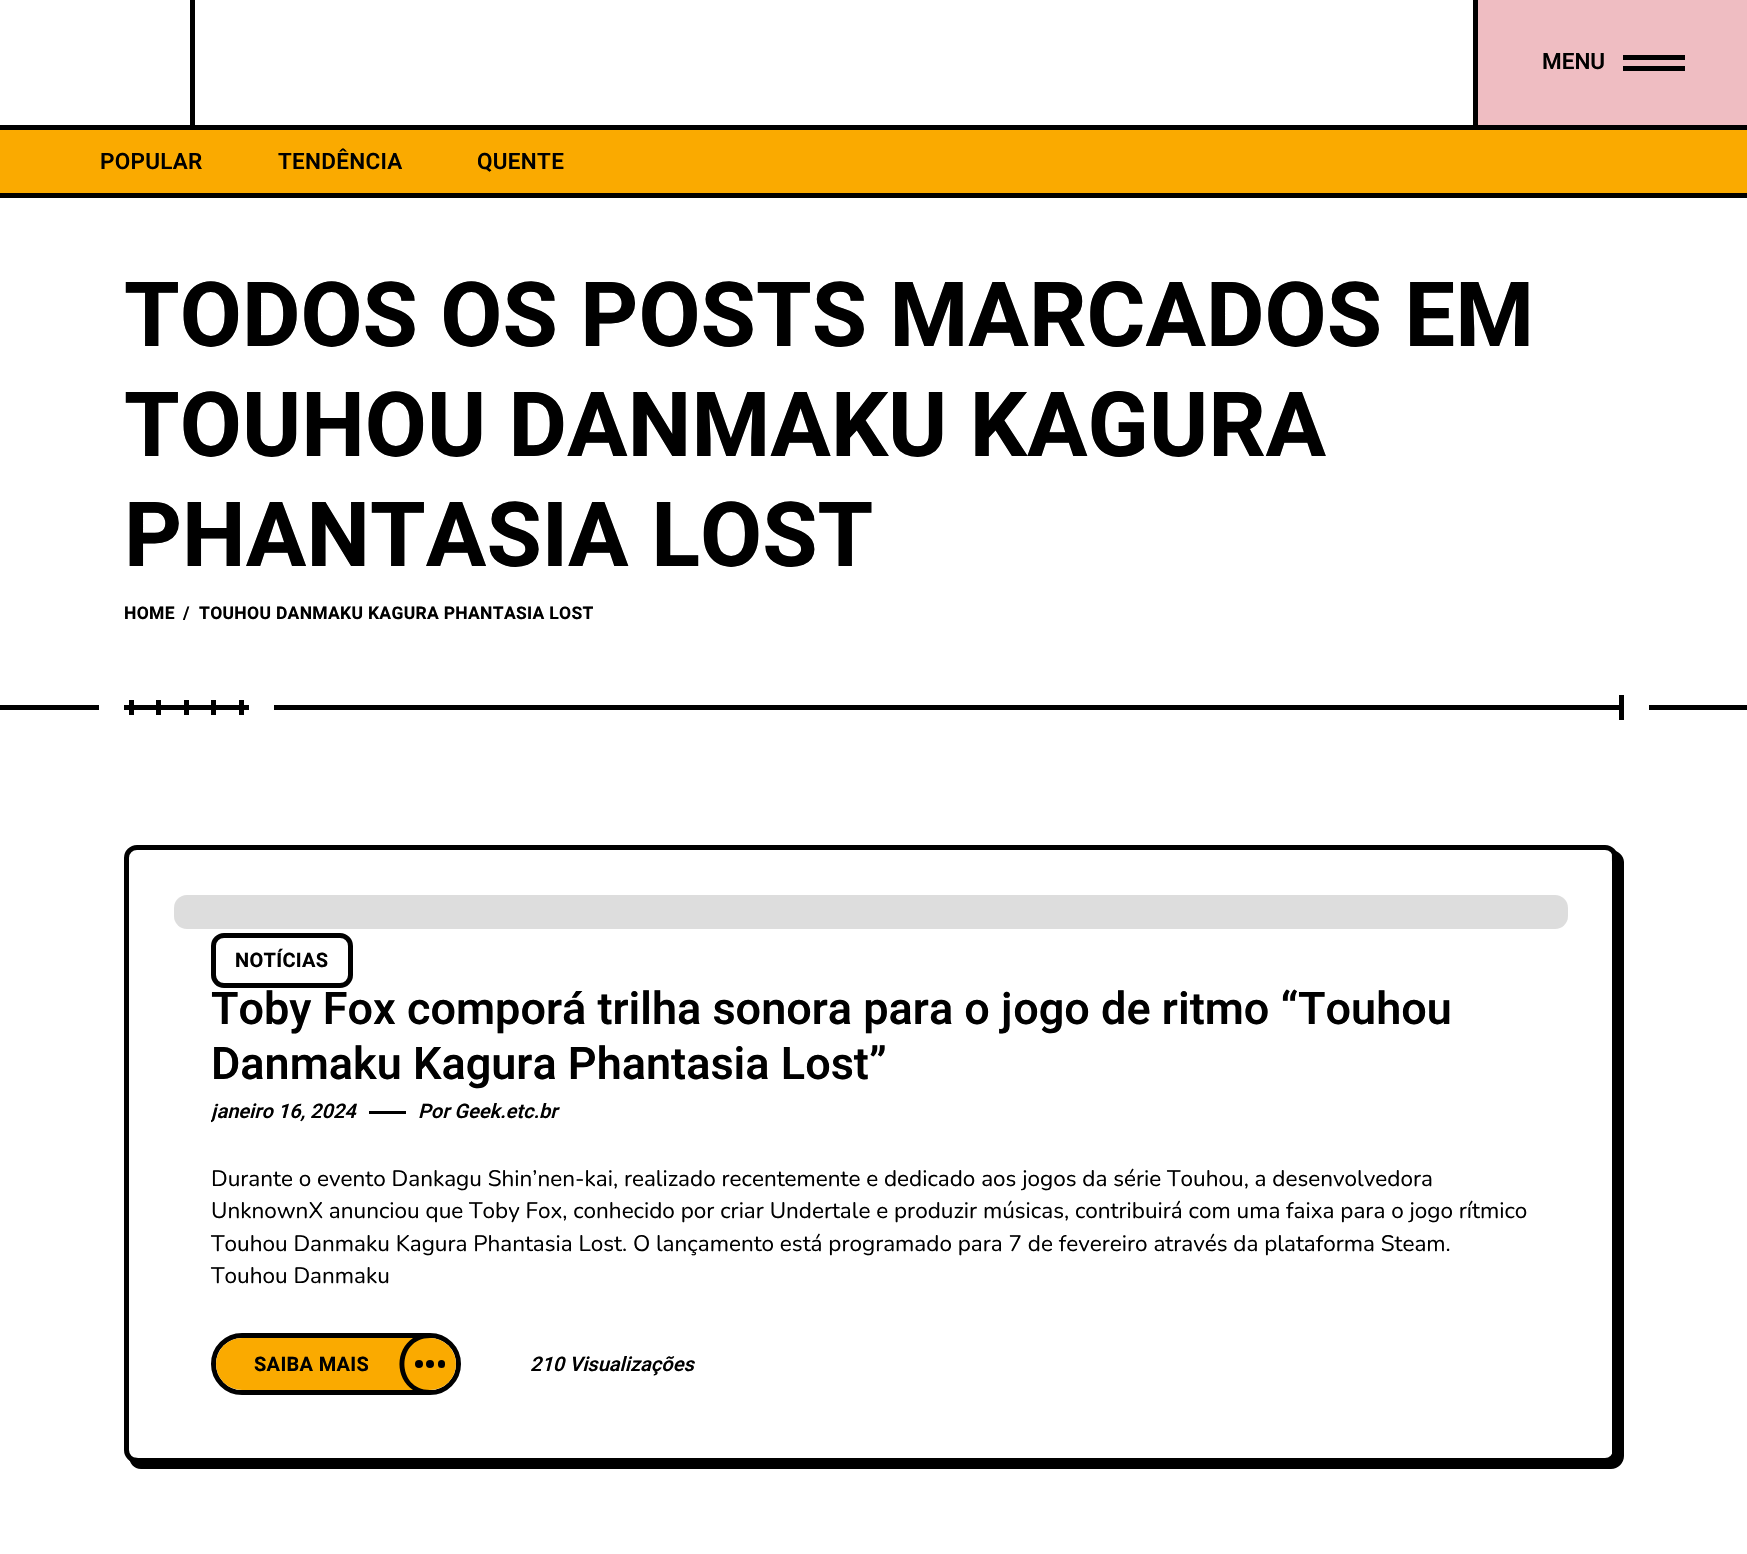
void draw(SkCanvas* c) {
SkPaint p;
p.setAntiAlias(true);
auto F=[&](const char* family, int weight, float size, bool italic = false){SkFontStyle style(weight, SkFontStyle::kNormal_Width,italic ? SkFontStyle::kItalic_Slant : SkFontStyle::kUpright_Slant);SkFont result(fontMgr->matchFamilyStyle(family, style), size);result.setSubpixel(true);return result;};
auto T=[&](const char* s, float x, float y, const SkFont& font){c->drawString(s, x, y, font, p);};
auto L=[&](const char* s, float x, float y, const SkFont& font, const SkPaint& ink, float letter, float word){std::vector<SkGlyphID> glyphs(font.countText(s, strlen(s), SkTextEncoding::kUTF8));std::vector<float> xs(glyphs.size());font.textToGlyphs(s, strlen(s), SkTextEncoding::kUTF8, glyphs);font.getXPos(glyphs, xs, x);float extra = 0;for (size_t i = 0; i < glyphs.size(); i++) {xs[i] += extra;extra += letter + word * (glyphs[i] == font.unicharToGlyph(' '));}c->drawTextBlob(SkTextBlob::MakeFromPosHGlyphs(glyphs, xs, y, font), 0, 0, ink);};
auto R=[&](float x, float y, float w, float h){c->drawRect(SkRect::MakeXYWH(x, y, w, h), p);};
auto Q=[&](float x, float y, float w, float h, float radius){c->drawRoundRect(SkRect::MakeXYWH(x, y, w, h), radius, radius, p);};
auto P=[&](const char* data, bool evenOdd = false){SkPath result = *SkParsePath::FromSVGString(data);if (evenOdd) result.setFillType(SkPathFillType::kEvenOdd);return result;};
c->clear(0xffffffff);
p.setColor(0xff000000);
R(0,125,1747,5);
R(190,0,5,125);
R(1473,0,5,125);
p.setColor(0xffefbdc2);
R(1478,0,269,125);
auto f1 = F("Heebo",600,22.5);
p.setColor(0xff000000);
T("MENU",1542,69,f1);
R(1623,55,62,5);
R(1623,66,62,5);
p.setColor(0xfffaaa00);
R(0,130,1747,63);
p.setColor(0xff000000);
R(0,193,1747,5);
L("POPULAR",100,169,f1,p,.3,0);
L("TENDÊNCIA",278,169,f1,p,.3,0);
L("QUENTE",477,169,f1,p,.3,0);
auto f2 = F("Heebo",700,90);
T("TODOS OS POSTS MARCADOS EM",124,346,f2);
T("TOUHOU DANMAKU KAGURA",124,456,f2);
T("PHANTASIA LOST",124,566,f2);
auto f3 = F("Heebo",700,17.5);
L("HOME",124,619,f3,p,.3,0);
L("/",183,619,f3,p,.3,0);
L("TOUHOU DANMAKU KAGURA PHANTASIA LOST",199,619,f3,p,.3,0);
R(124,705,125,5);
R(129,700,5,15);
R(156,700,5,15);
R(184,700,5,15);
R(211,700,5,15);
R(239,700,5,15);
R(1619,695,5,25);
R(0,705,99,5);
R(1649,705,98,5);
R(274,705,1350,5);
c->drawPath(P("M129 850h1482c7 0 13 6 13 12v594c0 7-6 13-13 13h-1470c-7 0-12-6-12-13zm0 0h1482c1 0 1 6 1 12v594c0 1 0 2-1 2h-1470c-7 0-12-1-12-2z",true),p);
p.setStroke(true);
p.setStrokeWidth(5);
c->drawRoundRect(SkRect::MakeXYWH(126.5,847.5,1489,613),10.5,10.5,p);
p.setStroke(false);
p.setColor(0xffdddddd);
Q(174,895,1394,34,13);
p.setStroke(true);
p.setColor(0xff000000);
c->drawRoundRect(SkRect::MakeXYWH(213.5,935.5,137,50),10.5,10.5,p);
auto f4 = F("Heebo",700,20);
p.setStroke(false);
L("NOTÍCIAS",235,967,f4,p,.3,0);
auto f5 = F("Heebo",600,45);
T("Toby Fox comporá trilha sonora para o jogo de ritmo “Touhou",211,1024,f5);
T("Danmaku Kagura Phantasia Lost”",211,1079,f5);
c->save();
c->clipRect(SkRect::MakeXYWH(211,1099,1319,29));
auto f6 = F("Heebo",600,20,true);
T("janeiro 16, 2024",211,1118,f6);
c->restore();
R(369,1111,37,3);
T("Por Geek.etc.br",418,1118,f6);
auto f7 = F("Nunito",400,22.5);
T("Durante o evento Dankagu Shin’nen-kai, realizado recentemente e dedicado aos jogos da série Touhou, a desenvolvedora",211,1186,f7);
T("UnknownX anunciou que Toby Fox, conhecido por criar Undertale e produzir músicas, contribuirá com uma faixa para o jogo rítmico",211,1218,f7);
T("Touhou Danmaku Kagura Phantasia Lost. O lançamento está programado para 7 de fevereiro através da plataforma Steam.",211,1251,f7);
T("Touhou Danmaku",211,1283,f7);
p.setStroke(true);
c->drawRoundRect(SkRect::MakeXYWH(213.5,1335.5,245,57),28.5,28.5,p);
p.setStroke(false);
p.setColor(0xfffaaa00);
Q(216,1338,240,52,26);
p.setColor(0xff000000);
L("SAIBA MAIS",254,1371,f4,p,.3,0);
c->drawPath(P("M430 1338c-34 0-34 52 0 52h-17c-18-12-18-40 0-52z"),p);
c->drawCircle(430,1364,4,p);
c->drawCircle(419,1364,4,p);
Q(438,1360,7,8,3.5);
T("210 Visualizações",530,1371,f6);
}
